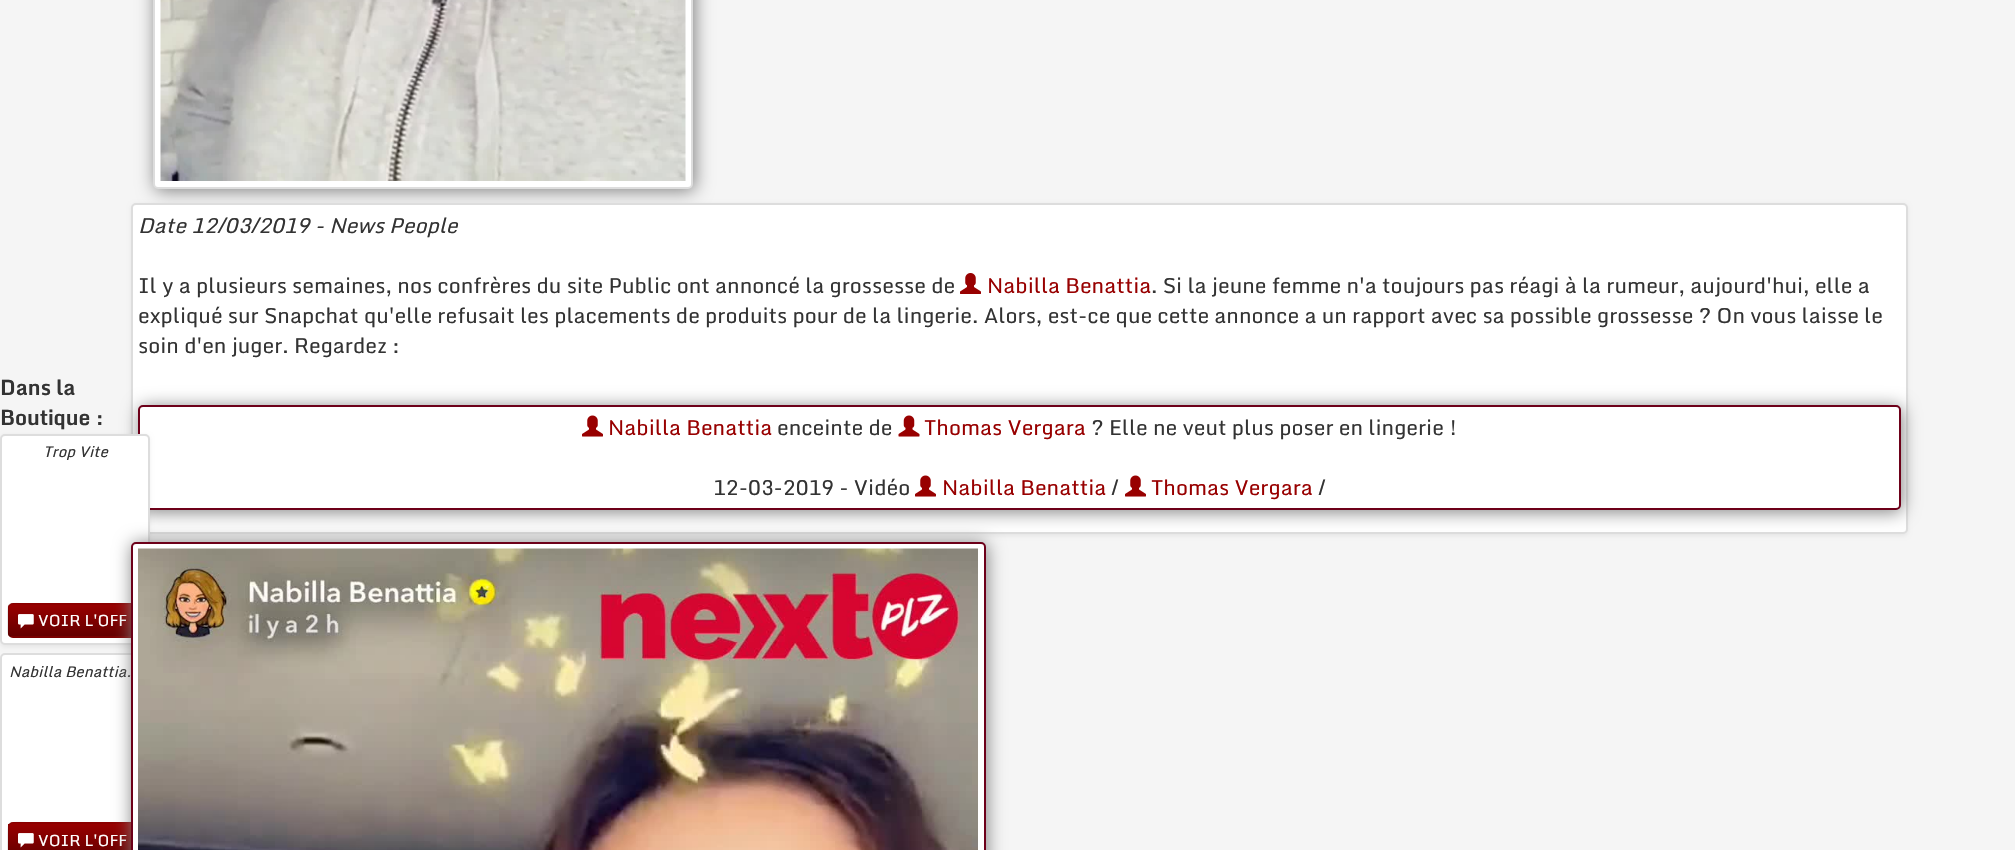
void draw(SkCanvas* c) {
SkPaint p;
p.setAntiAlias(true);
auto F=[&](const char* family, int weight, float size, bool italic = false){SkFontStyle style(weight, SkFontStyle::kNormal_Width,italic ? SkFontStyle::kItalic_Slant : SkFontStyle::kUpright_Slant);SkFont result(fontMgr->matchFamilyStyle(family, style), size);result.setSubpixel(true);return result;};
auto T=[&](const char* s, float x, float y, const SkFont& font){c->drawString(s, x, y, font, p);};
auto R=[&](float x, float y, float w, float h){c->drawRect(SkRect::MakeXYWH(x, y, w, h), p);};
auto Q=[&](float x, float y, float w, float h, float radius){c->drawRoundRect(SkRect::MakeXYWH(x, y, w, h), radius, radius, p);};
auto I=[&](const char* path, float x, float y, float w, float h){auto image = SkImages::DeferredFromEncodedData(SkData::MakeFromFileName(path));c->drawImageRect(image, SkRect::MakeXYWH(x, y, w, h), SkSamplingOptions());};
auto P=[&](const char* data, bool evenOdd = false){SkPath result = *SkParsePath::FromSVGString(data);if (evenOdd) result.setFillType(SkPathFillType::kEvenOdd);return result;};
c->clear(0xfff5f5f5);
p.setColor(0xff808080);
p.setMaskFilter(SkMaskFilter::MakeBlur(kNormal_SkBlurStyle, 9));
c->drawRoundRect(SkRect::MakeXYWH(155,-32,540,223),5,5,p);
p.setMaskFilter(nullptr);
p.setColor(0xffffffff);
c->drawRoundRect(SkRect::MakeXYWH(154,-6,538,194),4,4,p);
p.setStroke(true);
p.setStrokeWidth(2);
p.setColor(0xffdddddd);
c->drawRoundRect(SkRect::MakeXYWH(154,-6,538,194),4,4,p);
I("1.png",160,0,526,181);
auto f1 = F("Monda",700,21);
p.setStroke(false);
p.setColor(0xff333333);
T("Dans la",0,395,f1);
T("Boutique :",0,425,f1);
p.setColor(0x0f000000);
p.setMaskFilter(SkMaskFilter::MakeBlur(kNormal_SkBlurStyle, 2));
c->drawRoundRect(SkRect::MakeXYWH(131,204,1777,332),5,5,p);
p.setMaskFilter(nullptr);
p.setColor(0xffffffff);
c->drawRoundRect(SkRect::MakeXYWH(132,204,1775,329),4,4,p);
p.setStroke(true);
p.setColor(0xffdddddd);
c->drawRoundRect(SkRect::MakeXYWH(132,204,1775,329),4,4,p);
p.setStroke(false);
p.setColor(0xff808080);
p.setMaskFilter(SkMaskFilter::MakeBlur(kNormal_SkBlurStyle, 9));
c->drawRoundRect(SkRect::MakeXYWH(140,407,1762,105),5,5,p);
p.setMaskFilter(nullptr);
p.setColor(0xffffffff);
c->drawRoundRect(SkRect::MakeXYWH(139,406,1761,103),4,4,p);
p.setStroke(true);
p.setColor(0xff6d0019);
c->drawRoundRect(SkRect::MakeXYWH(139,406,1761,103),4,4,p);
p.setStroke(false);
p.setColor(0x0f000000);
p.setMaskFilter(SkMaskFilter::MakeBlur(kNormal_SkBlurStyle, 2));
c->drawRoundRect(SkRect::MakeXYWH(0,435,150,212),5,5,p);
p.setMaskFilter(nullptr);
p.setColor(0xffffffff);
c->drawRoundRect(SkRect::MakeXYWH(1,435,148,209),4,4,p);
p.setStroke(true);
p.setColor(0xffdddddd);
c->drawRoundRect(SkRect::MakeXYWH(1,435,148,209),4,4,p);
auto f2 = F("Monda",400,15,true);
p.setStroke(false);
p.setColor(0xff333333);
T("Trop Vite",43,457,f2);
p.setColor(0xff980000);
Q(8,603,135,35,5);
c->save();
c->clipPath(P("M13 603h125c3 0 5 2 5 5v25c0 3-2 5-5 5h-125c-3 0-5-2-5-5v-25c0-3 2-5 5-5z"),true);
{
const SkColor colors[] = {0xff980000,0xff650000};
const float stops[] = {0,1};
const SkPoint ends[] = {{75,605}, {75,636}};
p.setShader(SkGradientShader::MakeLinear(ends, colors, stops, 2, SkTileMode::kClamp));
p.setAlpha(255);
}
R(8,605,123,31);
c->restore();
p.setStroke(true);
p.setStrokeWidth(1.5);
p.setShader(nullptr);
p.setColor(0x40000000);
c->drawPath(P("M140.5 635.5c-.5 1-1.5 1.5-2.5 1.5h-126c-1 0-2-.5-2.5-1.5"),p);
p.setColor(0x1a000000);
c->drawPath(P("M9.5 635.5c-2.5-2-1.5-8.5-1.5-11c0-26-4-20.5 25-20.5h84c29 0 25-5.5 25 20.5c0 2.5 1 9-1.5 11"),p);
I("2.png",18,614,16,15);
auto f3 = F("Monda",400,15.75);
p.setStroke(false);
p.setColor(0xffffffff);
T("VOIR L'OFF",38,626,f3);
c->drawRoundRect(SkRect::MakeXYWH(1,654,148,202),4,4,p);
p.setStroke(true);
p.setStrokeWidth(2);
p.setColor(0xffdddddd);
c->drawRoundRect(SkRect::MakeXYWH(1,654,148,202),4,4,p);
p.setStroke(false);
p.setColor(0xff333333);
T("Nabilla Benattia.",9,677,f2);
p.setColor(0xff980000);
Q(8,822,135,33,5);
{
const SkColor colors[] = {0xff980000,0xff650000};
const float stops[] = {0,1};
const SkPoint ends[] = {{75,824}, {75,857}};
p.setShader(SkGradientShader::MakeLinear(ends, colors, stops, 2, SkTileMode::kClamp));
p.setAlpha(255);
}
R(8,824,123,26);
p.setStroke(true);
p.setStrokeWidth(1.5);
p.setShader(nullptr);
p.setColor(0x1a000000);
c->drawPath(P("M9.5 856c-2.5-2-1.5-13-1.5-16c0-22.5-2-17 25-17h84c27 0 25-5.5 25 17c0 3 1 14-1.5 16"),p);
I("3.png",18,833,16,15);
p.setStroke(false);
p.setColor(0xffffffff);
T("VOIR L'OFF",38,846,f3);
auto f4 = F("Monda",400,21,true);
p.setColor(0xff333333);
T("Date 12/03/2019 - News People",138,233,f4);
auto f5 = F("Monda",400,21);
T("Il y a plusieurs semaines, nos confrères du site Public ont annoncé la grossesse de",138,293,f5);
I("4.png",960,273,21,21);
p.setColor(0xff980000);
T("Nabilla Benattia",987,293,f5);
p.setColor(0xff333333);
T(". Si la jeune femme n'a toujours pas réagi à la rumeur, aujourd'hui, elle a",1151,293,f5);
T("expliqué sur Snapchat qu'elle refusait les placements de produits pour de la lingerie. Alors, est-ce que cette annonce a un rapport avec sa possible grossesse ? On vous laisse le",138,323,f5);
T("soin d'en juger. Regardez :",138,353,f5);
I("5.png",582,415,21,22);
p.setColor(0xff980000);
T("Nabilla Benattia",608,435,f5);
p.setColor(0xff333333);
T("enceinte de",777,435,f5);
I("6.png",898,415,22,22);
p.setColor(0xff980000);
T("Thomas Vergara",924,435,f5);
p.setColor(0xff333333);
T("? Elle ne veut plus poser en lingerie !",1091,435,f5);
T("12-03-2019 - Vidéo",713,495,f5);
I("5.png",915,475,21,22);
p.setColor(0xff980000);
T("Nabilla Benattia",942,495,f5);
p.setColor(0xff333333);
T("/",1111,495,f5);
I("5.png",1125,475,21,22);
p.setColor(0xff980000);
T("Thomas Vergara",1151,495,f5);
p.setColor(0xff333333);
T("/",1318,495,f5);
p.setColor(0xff808080);
p.setMaskFilter(SkMaskFilter::MakeBlur(kNormal_SkBlurStyle, 9));
c->drawRoundRect(SkRect::MakeXYWH(132,543,855,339),5,5,p);
p.setMaskFilter(nullptr);
p.setColor(0xffffffff);
c->drawRoundRect(SkRect::MakeXYWH(132,543,853,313),4,4,p);
p.setStroke(true);
p.setStrokeWidth(2);
p.setColor(0xff6d0019);
c->drawRoundRect(SkRect::MakeXYWH(132,543,853,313),4,4,p);
I("7.png",138,548,840,302);
}
